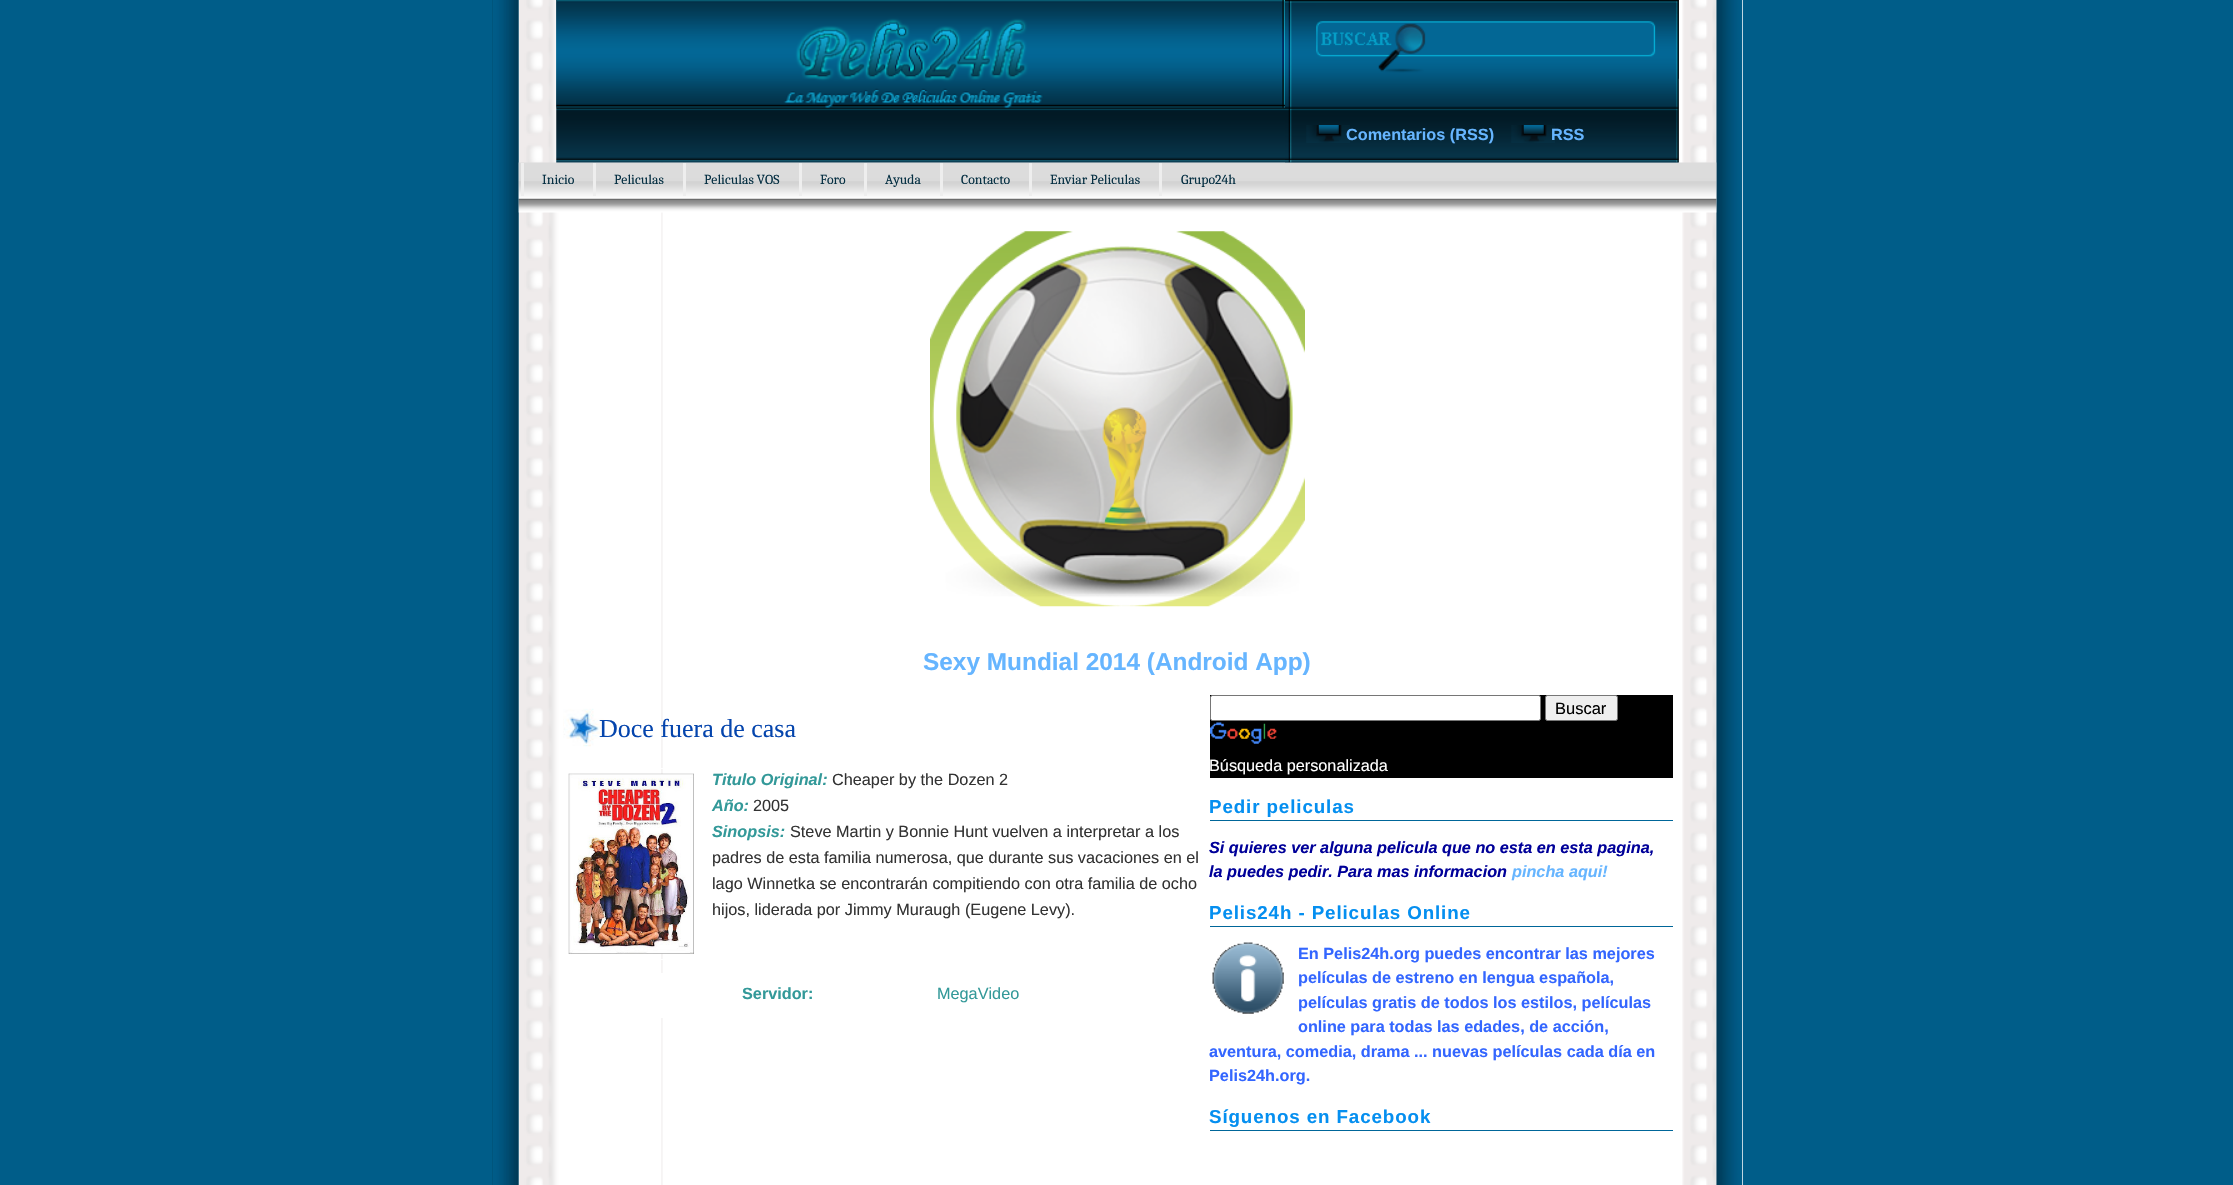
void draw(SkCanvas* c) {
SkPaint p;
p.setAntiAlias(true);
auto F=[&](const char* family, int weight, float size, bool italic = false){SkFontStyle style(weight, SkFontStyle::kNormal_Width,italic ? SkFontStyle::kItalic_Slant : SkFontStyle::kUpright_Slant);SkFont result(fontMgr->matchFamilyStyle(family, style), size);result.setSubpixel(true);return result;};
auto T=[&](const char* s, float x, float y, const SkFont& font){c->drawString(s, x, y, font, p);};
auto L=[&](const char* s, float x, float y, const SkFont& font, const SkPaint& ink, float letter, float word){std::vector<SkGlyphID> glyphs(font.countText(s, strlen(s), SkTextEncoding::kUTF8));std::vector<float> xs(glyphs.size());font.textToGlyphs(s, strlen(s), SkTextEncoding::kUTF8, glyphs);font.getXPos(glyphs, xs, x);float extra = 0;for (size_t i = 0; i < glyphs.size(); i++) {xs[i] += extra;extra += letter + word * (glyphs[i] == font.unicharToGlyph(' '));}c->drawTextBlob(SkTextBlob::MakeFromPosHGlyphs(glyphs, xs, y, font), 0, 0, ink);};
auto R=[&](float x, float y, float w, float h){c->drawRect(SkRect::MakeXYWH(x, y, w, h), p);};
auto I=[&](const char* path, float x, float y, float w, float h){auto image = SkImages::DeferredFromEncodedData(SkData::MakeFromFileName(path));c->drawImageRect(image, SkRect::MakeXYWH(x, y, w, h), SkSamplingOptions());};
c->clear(0xff005d89);
p.setColor(0xffffffff);
R(662,0,1081,1185);
I("1.png",492,0,27,1185);
I("2.png",1716,0,27,1185);
I("3.png",518,0,145,1185);
I("4.png",1682,0,35,1185);
I("11.png",518,162,1199,51);
I("5.png",556,0,1123,163);
I("6.png",556,0,729,108);
I("7.png",1285,0,394,163);
I("8.png",1316,0,363,79);
I("9.png",1306,125,44,18);
auto f1 = F("Liberation Sans",700,16.25);
p.setColor(0xff66b5ff);
T("Comentarios (RSS)",1346,140,f1);
I("10.png",1511,125,44,18);
T("RSS",1551,140,f1);
p.setColor(0xffeeeeee);
R(521,163,3,33);
auto f2 = F("Caladea",400,13.75);
p.setColor(0xff063043);
T("Inicio",542,184,f2);
p.setColor(0xffeeeeee);
R(593,163,3,33);
p.setColor(0xff063043);
T("Peliculas",614,184,f2);
p.setColor(0xffeeeeee);
R(683,163,3,33);
p.setColor(0xff063043);
T("Peliculas VOS",704,184,f2);
p.setColor(0xffeeeeee);
R(799,163,3,33);
p.setColor(0xff063043);
T("Foro",820,184,f2);
p.setColor(0xffeeeeee);
R(864,163,3,33);
p.setColor(0xff063043);
T("Ayuda",885,184,f2);
p.setColor(0xffeeeeee);
R(940,163,3,33);
p.setColor(0xff063043);
T("Contacto",961,184,f2);
p.setColor(0xffeeeeee);
R(1029,163,3,33);
p.setColor(0xff063043);
T("Enviar Peliculas",1050,184,f2);
p.setColor(0xffeeeeee);
R(1159,163,3,33);
p.setColor(0xff063043);
T("Grupo24h",1181,184,f2);
I("12.png",930,231,375,376);
auto f3 = F("Liberation Sans",700,24.4);
p.setColor(0xff66b5ff);
T("Sexy Mundial 2014 (Android App)",923,670,f3);
I("13.png",563,708,41,39);
auto f4 = F("Liberation Serif",400,26);
p.setColor(0xff0545ad);
T("Doce fuera de casa",599,737,f4);
p.setStroke(true);
p.setStrokeWidth(1);
p.setColor(0xffffffff);
c->drawRect(SkRect::MakeXYWH(563.5,768.5,136,191),p);
I("14.png",568,773,126,181);
auto f5 = F("Liberation Sans",700,16.25,true);
p.setStroke(false);
p.setColor(0xff339999);
T("Titulo Original:",712,785,f5);
auto f6 = F("Liberation Sans",400,16.25);
p.setColor(0xff333333);
T("Cheaper by the Dozen 2",832,785,f6);
p.setColor(0xff339999);
T("Año:",712,811,f5);
p.setColor(0xff333333);
T("2005",753,811,f6);
p.setColor(0xff339999);
T("Sinopsis:",712,837,f5);
p.setColor(0xff333333);
T("Steve Martin y Bonnie Hunt vuelven a interpretar a los",790,837,f6);
T("padres de esta familia numerosa, que durante sus vacaciones en el",712,863,f6);
T("lago Winnetka se encontrarán compitiendo con otra familia de ocho",712,889,f6);
T("hijos, liderada por Jimmy Muraugh (Eugene Levy).",712,915,f6);
p.setColor(0xffffffff);
R(661,973,2,45);
p.setColor(0xff339999);
T("Servidor:",742,999,f1);
T("MegaVideo",937,999,f6);
p.setColor(0xff000000);
R(1210,695,463,83);
p.setColor(0xffffffff);
c->drawRoundRect(SkRect::MakeXYWH(1210.5,695.5,330,25),2,2,p);
p.setStroke(true);
p.setColor(0xff767676);
c->drawRoundRect(SkRect::MakeXYWH(1210.5,695.5,330,25),2,2,p);
p.setStroke(false);
p.setColor(0xffefefef);
c->drawRoundRect(SkRect::MakeXYWH(1545.5,695.5,72,25),2,2,p);
p.setStroke(true);
p.setColor(0xff767676);
c->drawRoundRect(SkRect::MakeXYWH(1545.5,695.5,72,25),2,2,p);
auto f7 = F("Liberation Sans",400,16.5);
p.setStroke(false);
p.setColor(0xff000000);
T("Buscar",1555,714,f7);
I("15.png",1210,722,67,22);
p.setColor(0xffffffff);
T("Búsqueda personalizada",1209,771,f6);
p.setColor(0xff006699);
R(1210,820,463,1);
auto f8 = F("Liberation Sans",700,18.75);
p.setColor(0xff058ff0);
L("Pedir peliculas",1209,813,f8,p,.9,0);
p.setColor(0xff000099);
T("Si quieres ver alguna pelicula que no esta en esta pagina,",1209,853,f5);
T("la puedes pedir. Para mas informacion",1209,877,f5);
p.setColor(0xff66b5ff);
T("pincha aqui!",1512,877,f5);
p.setColor(0xff006699);
R(1210,926,463,1);
p.setColor(0xff058ff0);
L("Pelis24h - Peliculas Online",1209,919,f8,p,.9,0);
I("16.png",1212,942,72,72);
p.setColor(0xff3366ff);
T("En Pelis24h.org puedes encontrar las mejores",1298,959,f1);
T("películas de estreno en lengua española,",1298,983,f1);
T("películas gratis de todos los estilos, películas",1298,1008,f1);
T("online para todas las edades, de acción,",1298,1032,f1);
T("aventura, comedia, drama ... nuevas películas cada día en",1209,1057,f1);
T("Pelis24h.org.",1209,1081,f1);
p.setColor(0xff006699);
R(1210,1130,463,1);
p.setColor(0xff058ff0);
L("Síguenos en Facebook",1209,1123,f8,p,.9,0);
}
